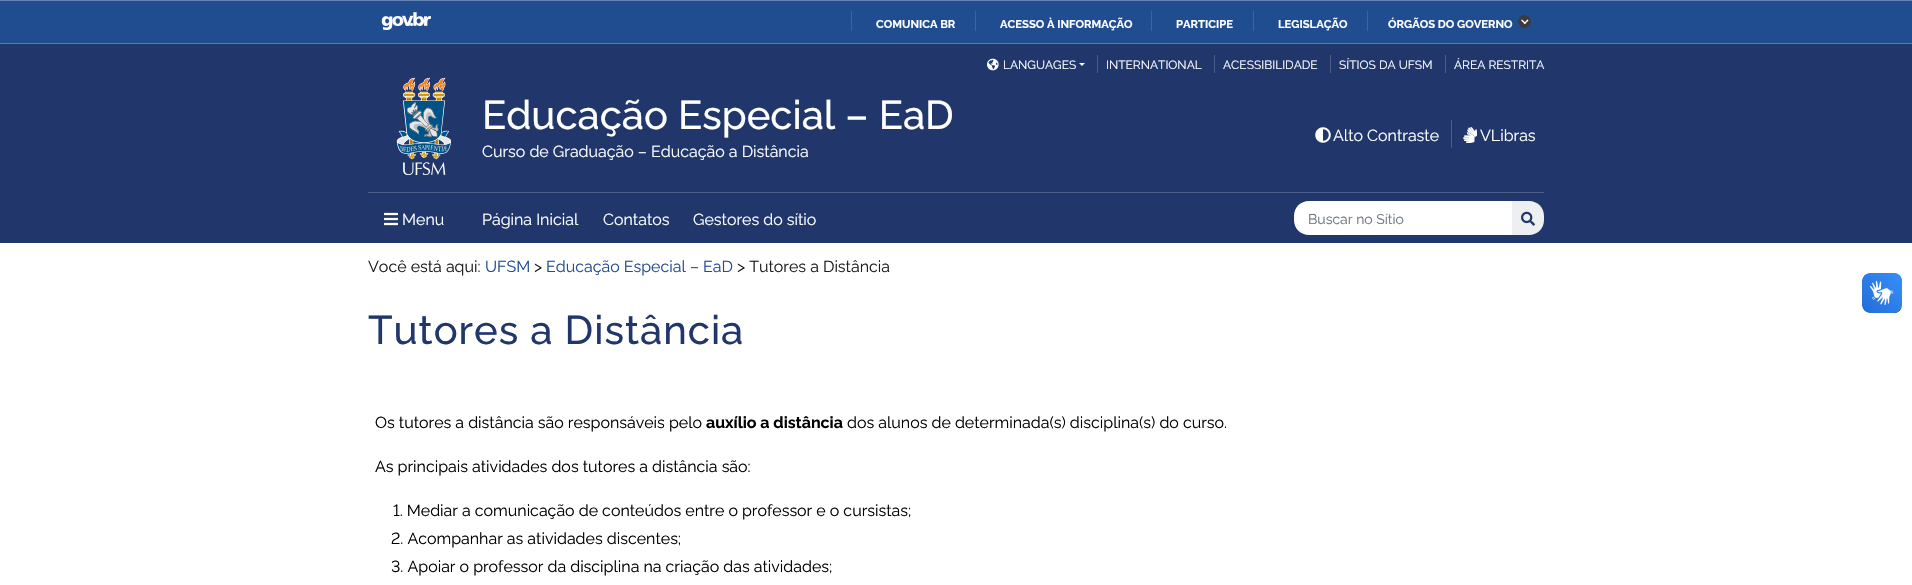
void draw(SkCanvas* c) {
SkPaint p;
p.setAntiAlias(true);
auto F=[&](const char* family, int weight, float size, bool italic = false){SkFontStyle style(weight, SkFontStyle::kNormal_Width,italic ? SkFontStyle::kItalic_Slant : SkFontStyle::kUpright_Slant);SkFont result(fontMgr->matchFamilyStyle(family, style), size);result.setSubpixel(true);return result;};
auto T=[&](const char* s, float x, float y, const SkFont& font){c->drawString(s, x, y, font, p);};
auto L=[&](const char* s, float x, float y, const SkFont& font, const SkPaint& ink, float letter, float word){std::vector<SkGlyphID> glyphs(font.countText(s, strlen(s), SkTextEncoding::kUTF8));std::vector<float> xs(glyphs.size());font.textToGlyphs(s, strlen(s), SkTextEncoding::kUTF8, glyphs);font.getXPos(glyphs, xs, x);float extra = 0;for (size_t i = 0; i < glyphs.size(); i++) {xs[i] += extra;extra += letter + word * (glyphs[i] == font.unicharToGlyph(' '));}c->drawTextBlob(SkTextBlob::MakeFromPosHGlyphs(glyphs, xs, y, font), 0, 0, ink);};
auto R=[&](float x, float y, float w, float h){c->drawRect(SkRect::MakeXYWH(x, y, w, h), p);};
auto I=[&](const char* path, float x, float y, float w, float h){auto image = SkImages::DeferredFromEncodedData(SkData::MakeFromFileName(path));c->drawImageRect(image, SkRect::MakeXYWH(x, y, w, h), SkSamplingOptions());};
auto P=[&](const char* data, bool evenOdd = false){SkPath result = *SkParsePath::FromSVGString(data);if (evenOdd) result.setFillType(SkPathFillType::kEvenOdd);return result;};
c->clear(0xffffffff);
p.setColor(0xff204c90);
R(0,1,1912,42);
p.setColor(0xff6382b1);
R(0,0,1912,1);
I("1.png",381,12,50,18);
p.setColor(0xff446392);
R(851,11,1,20);
auto f1 = F("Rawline",700,11.25);
p.setColor(0xffffffff);
T("COMUNICA BR",876,28,f1);
p.setColor(0xff446392);
R(975,11,1,20);
p.setColor(0xffffffff);
T("ACESSO À INFORMAÇÃO",1000,28,f1);
p.setColor(0xff446392);
R(1151,11,1,20);
p.setColor(0xffffffff);
T("PARTICIPE",1176,28,f1);
p.setColor(0xff446392);
R(1253,11,1,20);
p.setColor(0xffffffff);
T("LEGISLAÇÃO",1278,28,f1);
p.setColor(0xff446392);
R(1367,11,1,20);
p.setColor(0xffffffff);
T("ÓRGÃOS DO GOVERNO",1388,28,f1);
p.setColor(0xff3b3b3b);
c->drawCircle(1524.5,21.5,6.5,p);
I("2.png",1521,19,8,6);
p.setColor(0xff21376b);
R(0,44,1912,199);
p.setColor(0xff997520);
R(0,43,1912,1);
I("3.png",987,58,12,13);
auto f2 = F("Rawline",400,12);
p.setColor(0xffffffff);
T("LANGUAGES",1003,69,f2);
c->drawPath(P("M1079 63h6l-3 3z"),p);
p.setColor(0xff4d5f89);
R(1097,55,1,18);
p.setColor(0xffffffff);
T("INTERNATIONAL",1106,69,f2);
p.setColor(0xff4d5f89);
R(1214,55,1,18);
p.setColor(0xffffffff);
T("ACESSIBILIDADE",1223,69,f2);
p.setColor(0xff4d5f89);
R(1330,55,1,18);
p.setColor(0xffffffff);
T("SÍTIOS DA UFSM",1339,69,f2);
p.setColor(0xff4d5f89);
R(1445,55,1,18);
p.setColor(0xffffffff);
T("ÁREA RESTRITA",1454,69,f2);
p.setColor(0xff4d5f89);
R(368,192,1176,1);
I("4.png",396,77,55,98);
auto f3 = F("Rawline",500,40);
p.setColor(0xffffffff);
T("Educação Especial – EaD",482,129,f3);
auto f4 = F("Rawline",400,16);
T("Curso de Graduação – Educação a Distância",482,157,f4);
I("5.png",1315,127,16,16);
T("Alto Contraste",1333,141,f4);
p.setColor(0xff4d5f89);
R(1451,120,1,28);
I("6.png",1463,127,14,16);
p.setColor(0xffffffff);
T("VLibras",1480,141,f4);
I("7.png",384,212,14,14);
T("Menu",402,225,f4);
T("Página Inicial",482,225,f4);
T("Contatos",603,225,f4);
T("Gestores do sítio",693,225,f4);
c->save();
c->clipPath(P("M1309 201h220c8.5 0 15 6.5 15 15v4c0 8.5-6.5 15-15 15h-220c-8.5 0-15-6.5-15-15v-4c0-8.5 6.5-15 15-15z"),true);
c->drawPath(P("M1297 201h216v34h-216c-2 0-4-2-4-4v-26c0-2 2-4 4-4z"),p);
c->restore();
auto f5 = F("Rawline",400,14);
p.setColor(0xff6c757d);
T("Buscar no Sítio",1308,224,f5);
p.setColor(0xffeeeff1);
c->drawPath(P("M1512 201h17c8.5 0 15 6.5 15 15v4c0 8.5-6.5 15-15 15h-17z"),p);
I("8.png",1521,211,14,15);
p.setColor(0xff1c1c1c);
T("Você está aqui:",368,272,f4);
p.setColor(0xff204c90);
T("UFSM",485,272,f4);
p.setColor(0xff1c1c1c);
T(">",534,272,f4);
p.setColor(0xff204c90);
T("Educação Especial – EaD",546,272,f4);
p.setColor(0xff1c1c1c);
T("> Tutores a Distância",737,272,f4);
p.setColor(0xff21376b);
L("Tutores a Distância",368,344,f3,p,1,0);
p.setColor(0xff000000);
T("Os tutores a distância são responsáveis pelo",375,428,f4);
auto f6 = F("Rawline",700,16);
T("auxílio a distância",706,428,f6);
T("dos alunos de determinada(s) disciplina(s) do curso.",847,428,f4);
T("As principais atividades dos tutores a distância são:",375,472,f4);
T("1. Mediar a comunicação de conteúdos entre o professor e o cursistas;",393,516,f4);
T("2. Acompanhar as atividades discentes;",391,544,f4);
T("3. Apoiar o professor da disciplina na criação das atividades;",391,572,f4);
I("9.png",1862,273,40,40);
I("10.png",1862,273,40,40);
}
